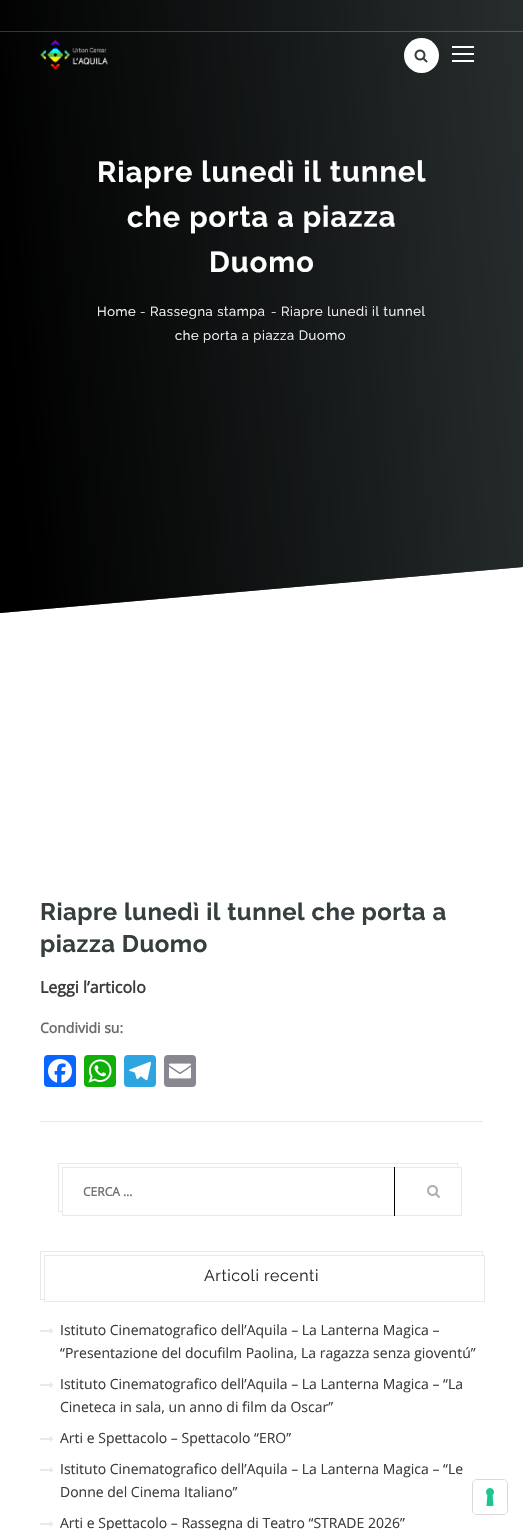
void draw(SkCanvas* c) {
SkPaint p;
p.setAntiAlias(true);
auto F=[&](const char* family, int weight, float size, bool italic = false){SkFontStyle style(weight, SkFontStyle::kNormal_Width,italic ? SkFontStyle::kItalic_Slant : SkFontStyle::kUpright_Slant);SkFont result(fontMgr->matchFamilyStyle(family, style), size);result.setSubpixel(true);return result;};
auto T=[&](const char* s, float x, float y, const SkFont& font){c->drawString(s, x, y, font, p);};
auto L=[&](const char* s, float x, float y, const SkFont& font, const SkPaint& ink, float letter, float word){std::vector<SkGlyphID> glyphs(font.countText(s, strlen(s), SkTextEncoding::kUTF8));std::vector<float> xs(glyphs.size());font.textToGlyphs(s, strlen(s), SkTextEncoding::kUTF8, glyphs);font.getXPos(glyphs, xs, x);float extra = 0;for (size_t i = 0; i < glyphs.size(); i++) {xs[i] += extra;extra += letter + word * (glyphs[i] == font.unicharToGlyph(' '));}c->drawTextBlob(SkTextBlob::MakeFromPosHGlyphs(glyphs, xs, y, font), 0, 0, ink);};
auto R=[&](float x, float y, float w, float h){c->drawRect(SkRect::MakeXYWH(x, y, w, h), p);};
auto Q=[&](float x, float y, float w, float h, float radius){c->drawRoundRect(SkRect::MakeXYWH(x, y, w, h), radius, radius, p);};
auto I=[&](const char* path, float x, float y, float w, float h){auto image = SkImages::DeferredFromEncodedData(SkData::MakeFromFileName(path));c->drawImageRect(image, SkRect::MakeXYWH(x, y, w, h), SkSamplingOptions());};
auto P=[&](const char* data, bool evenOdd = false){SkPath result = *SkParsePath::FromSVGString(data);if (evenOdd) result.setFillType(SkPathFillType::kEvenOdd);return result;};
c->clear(0xffffffff);
p.setColor(0xff000000);
c->drawPath(P("M0-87l523-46v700l-523 46z"),p);
{
const SkColor colors[] = {0xb3363e3f,0xb3000000};
const float stops[] = {0,1};
const SkPoint ends[] = {{523,217}, {0,263}};
p.setShader(SkGradientShader::MakeLinear(ends, colors, stops, 2, SkTileMode::kClamp));
p.setAlpha(255);
}
c->drawPath(P("M0-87v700l523-46v-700l-261 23z"),p);
p.setShader(nullptr);
p.setColor(0x33ffffff);
R(0,31,523,1);
p.setColor(0xffffffff);
c->drawCircle(421.5,55.5,17.5,p);
I("1.png",414,49,14,14);
I("2.png",40,40,68,30);
R(452,46,22,2);
R(452,53,22,2);
R(452,60,22,2);
auto f1 = F("Raleway",700,29);
c->save();
c->rotate(-.1,97,182);
L("Riapre lunedì il tunnel",97,182,f1,p,1,0);
c->restore();
c->save();
c->rotate(-.1,127,227);
L("che porta a piazza",127,227,f1,p,1,0);
c->restore();
c->save();
c->rotate(-.1,209,272);
L("Duomo",209,272,f1,p,1,0);
c->restore();
auto f2 = F("Raleway",400,13);
c->save();
c->rotate(-.1,97,316);
L("Home",97,316,f2,p,.6,0);
c->restore();
c->save();
c->rotate(-.1,140,316);
L("-",140,316,f2,p,.6,0);
c->restore();
c->save();
c->rotate(-.1,150,316);
L("Rassegna stampa",150,316,f2,p,.6,0);
c->restore();
c->save();
c->rotate(-.1,271,316);
L("-",271,316,f2,p,.6,0);
c->restore();
c->save();
c->rotate(-.1,281,316);
L("Riapre lunedì il tunnel",281,316,f2,p,.6,0);
c->restore();
c->save();
c->rotate(-.1,175,340);
L("che porta a piazza Duomo",175,340,f2,p,.6,0);
c->restore();
auto f3 = F("Raleway",700,24);
p.setColor(0xff363e3f);
L("Riapre lunedì il tunnel che porta a",40,920,f3,p,.5,0);
L("piazza Duomo",40,952,f3,p,.5,0);
auto f4 = F("Open Sans",700,16);
p.setColor(0xff3c3c3c);
T("Leggi l’articolo",40,993,f4);
auto f5 = F("Open Sans",700,14);
p.setColor(0xff6b6b6b);
T("Condividi su:",40,1033,f5);
p.setColor(0xff0866ff);
Q(44,1055,32,32,4);
I("3.png",48,1059,24,24);
p.setColor(0xff12af0a);
Q(84,1055,32,32,4);
I("4.png",88,1059,24,24);
p.setColor(0xff2ca5e0);
Q(124,1055,32,32,4);
I("5.png",129,1061,22,20);
p.setColor(0xff888990);
Q(164,1055,32,32,4);
I("6.png",169,1063,22,16);
p.setColor(0xffe9e9e9);
R(40,1121,443,1);
p.setStroke(true);
p.setStrokeWidth(1);
c->drawRect(SkRect::MakeXYWH(58.5,1163.5,399,48),p);
p.setStroke(false);
p.setColor(0xffffffff);
R(63,1168,395,44);
p.setStroke(true);
p.setColor(0xffe9e9e9);
c->drawRect(SkRect::MakeXYWH(62.5,1167.5,399,48),p);
auto f6 = F("Open Sans",700,12);
p.setStroke(false);
p.setColor(0xff757575);
T("CERCA …",83,1196,f6);
p.setColor(0xff000000);
R(394,1167,1,49);
I("7.png",427,1185,13,13);
p.setStroke(true);
p.setColor(0xffe9e9e9);
c->drawRect(SkRect::MakeXYWH(40.5,1251.5,442,48),p);
p.setStroke(false);
p.setColor(0xffffffff);
R(45,1256,438,44);
p.setStroke(true);
p.setColor(0xffe9e9e9);
c->drawRect(SkRect::MakeXYWH(44.5,1255.5,440,46),p);
auto f7 = F("Raleway",400,16);
p.setStroke(false);
p.setColor(0xff282828);
L("Articoli recenti",204,1281,f7,p,.5,0);
I("8.png",40,1328,13,6);
auto f8 = F("Open Sans",400,14);
p.setColor(0xff3c3c3c);
T("Istituto Cinematografico dell’Aquila – La Lanterna Magica –",60,1335,f8);
T("“Presentazione del docufilm Paolina, La ragazza senza gioventú”",60,1358,f8);
I("8.png",40,1382,13,6);
T("Istituto Cinematografico dell’Aquila – La Lanterna Magica – “La",60,1389,f8);
T("Cineteca in sala, un anno di film da Oscar”",60,1412,f8);
I("8.png",40,1436,13,6);
T("Arti e Spettacolo – Spettacolo “ERO”",60,1443,f8);
I("8.png",40,1467,13,6);
T("Istituto Cinematografico dell’Aquila – La Lanterna Magica – “Le",60,1474,f8);
T("Donne del Cinema Italiano”",60,1497,f8);
I("8.png",40,1521,13,6);
T("Arti e Spettacolo – Rassegna di Teatro “STRADE 2026”",60,1528,f8);
p.setStroke(true);
p.setColor(0xffd9d9d9);
c->drawRoundRect(SkRect::MakeXYWH(472.5,1479.5,35,35),4.5,4.5,p);
p.setStroke(false);
p.setColor(0xffffffff);
Q(473,1480,34,34,4);
I("9.png",486,1488,8,18);
}
